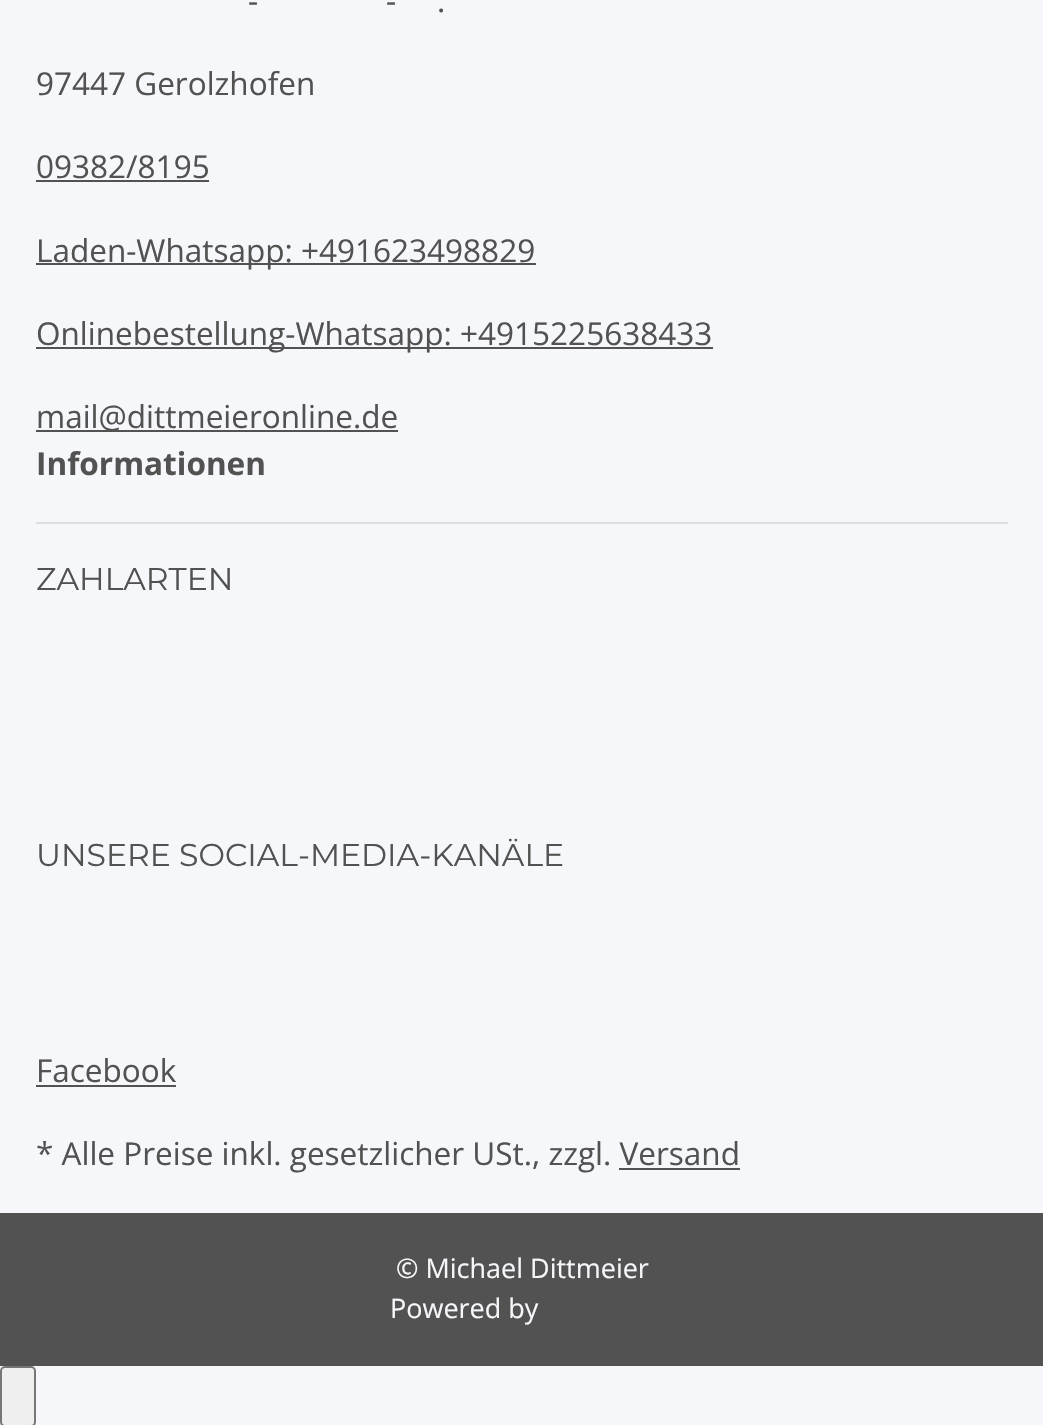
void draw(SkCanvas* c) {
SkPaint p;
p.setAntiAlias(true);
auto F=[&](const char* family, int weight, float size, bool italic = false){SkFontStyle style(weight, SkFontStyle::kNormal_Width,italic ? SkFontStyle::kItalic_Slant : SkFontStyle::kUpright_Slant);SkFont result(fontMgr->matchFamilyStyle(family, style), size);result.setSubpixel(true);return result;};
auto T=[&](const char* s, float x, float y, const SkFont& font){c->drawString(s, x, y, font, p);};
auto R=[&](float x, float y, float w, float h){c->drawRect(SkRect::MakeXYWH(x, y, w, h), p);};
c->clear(0xfff5f7fa);
auto f1 = F("Open Sans",400,31.5);
p.setColor(0xff525252);
T("-",248,12,f1);
T("-",386,12,f1);
T(".",437,12,f1);
T("97447 Gerolzhofen",36,95,f1);
T("09382/8195",36,178,f1);
R(36,180,173,2);
R(36,263,500,2);
T("Laden-Whatsapp: +491623498829",36,262,f1);
R(36,347,677,2);
T("Onlinebestellung-Whatsapp: +4915225638433",36,345,f1);
R(36,430,362,2);
T("mail@dittmeieronline.de",36,428,f1);
auto f2 = F("Open Sans",700,31.5);
T("Informationen",36,475,f2);
p.setColor(0xffdddee1);
R(36,522,972,2);
auto f3 = F("Montserrat",400,31.5);
p.setColor(0xff525252);
T("ZAHLARTEN",36,590,f3);
T("UNSERE SOCIAL-MEDIA-KANÄLE",36,866,f3);
T("Facebook",36,1082,f1);
R(36,1085,140,2);
T("* Alle Preise inkl. gesetzlicher USt., zzgl. Versand",36,1165,f1);
R(619,1168,121,2);
R(0,1213,1043,153);
auto f4 = F("Open Sans",400,27);
p.setColor(0xfff5f7fa);
T("© Michael Dittmeier",396,1278,f4);
T("Powered by",390,1318,f4);
p.setColor(0xffefefef);
c->drawRoundRect(SkRect::MakeXYWH(1,1367,34,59),4,4,p);
p.setStroke(true);
p.setStrokeWidth(2);
p.setColor(0xff767676);
c->drawRoundRect(SkRect::MakeXYWH(1,1367,34,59),4,4,p);
}
